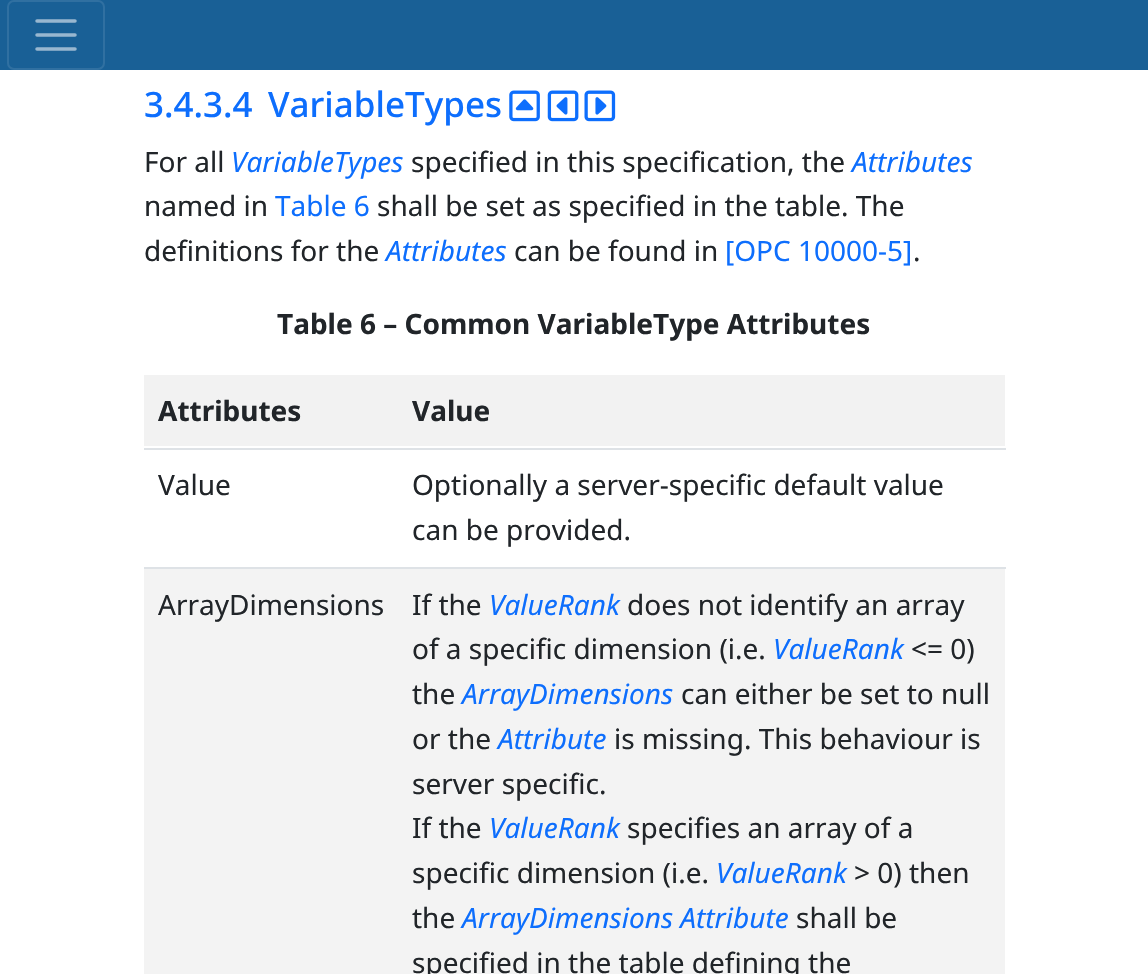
void draw(SkCanvas* c) {
SkPaint p;
p.setAntiAlias(true);
auto F=[&](const char* family, int weight, float size, bool italic = false){SkFontStyle style(weight, SkFontStyle::kNormal_Width,italic ? SkFontStyle::kItalic_Slant : SkFontStyle::kUpright_Slant);SkFont result(fontMgr->matchFamilyStyle(family, style), size);result.setSubpixel(true);return result;};
auto T=[&](const char* s, float x, float y, const SkFont& font){c->drawString(s, x, y, font, p);};
auto R=[&](float x, float y, float w, float h){c->drawRect(SkRect::MakeXYWH(x, y, w, h), p);};
auto I=[&](const char* path, float x, float y, float w, float h){auto image = SkImages::DeferredFromEncodedData(SkData::MakeFromFileName(path));c->drawImageRect(image, SkRect::MakeXYWH(x, y, w, h), SkSamplingOptions());};
auto P=[&](const char* data, bool evenOdd = false){SkPath result = *SkParsePath::FromSVGString(data);if (evenOdd) result.setFillType(SkPathFillType::kEvenOdd);return result;};
c->clear(0xffffffff);
p.setColor(0xff196096);
R(0,0,1148,70);
p.setStroke(true);
p.setStrokeWidth(2);
p.setColor(0xff3070a1);
c->drawRoundRect(SkRect::MakeXYWH(8,1,96,68),6,6,p);
p.setStrokeWidth(3.5);
p.setStrokeCap(SkPaint::kRound_Cap);
p.setColor(0xff98b7d0);
c->drawPath(P("M37 21h38m-38 14h38m-38 14h38"),p);
auto f1 = F("Noto Sans",500,35);
p.setStroke(false);
p.setColor(0xff0d6efd);
T("3.4.3.4",144,117,f1);
T("VariableTypes",268,117,f1);
I("1.png",509,90,31,32);
I("2.png",547,90,32,32);
I("3.png",584,90,32,32);
auto f2 = F("Noto Sans",400,28);
p.setColor(0xff212529);
T("For all",144,172,f2);
auto f3 = F("Noto Sans",400,28,true);
p.setColor(0xff0d6efd);
T("VariableTypes",231,172,f3);
p.setColor(0xff212529);
T("specified in this specification, the",411,172,f2);
p.setColor(0xff0d6efd);
T("Attributes",852,172,f3);
p.setColor(0xff212529);
T("named in",144,216,f2);
p.setColor(0xff0d6efd);
T("Table 6",275,216,f2);
p.setColor(0xff212529);
T("shall be set as specified in the table. The",377,216,f2);
T("definitions for the",144,261,f2);
p.setColor(0xff0d6efd);
T("Attributes",386,261,f3);
p.setColor(0xff212529);
T("can be found in",514,261,f2);
p.setColor(0xff0d6efd);
T("[OPC 10000-5]",725,261,f2);
p.setColor(0xff212529);
T(".",913,261,f2);
auto f4 = F("Noto Sans",700,28);
T("Table 6 – Common VariableType Attributes",277,334,f4);
p.setColor(0xfff2f2f2);
R(144,375,861,71);
p.setColor(0xff212529);
T("Attributes",158,421,f4);
p.setColor(0xffdee2e6);
R(144,448,862,2);
p.setColor(0xff212529);
T("Value",412,421,f4);
T("Value",158,495,f2);
p.setColor(0xffdee2e6);
R(144,567,862,2);
p.setColor(0xff212529);
T("Optionally a server-specific default value",412,495,f2);
T("can be provided.",412,540,f2);
p.setColor(0xfff3f3f3);
R(144,569,861,405);
p.setColor(0xff212529);
T("ArrayDimensions",158,615,f2);
T("If the",412,615,f2);
p.setColor(0xff0d6efd);
T("ValueRank",489,615,f3);
p.setColor(0xff212529);
T("does not identify an array",627,615,f2);
T("of a specific dimension (i.e.",412,659,f2);
p.setColor(0xff0d6efd);
T("ValueRank",773,659,f3);
p.setColor(0xff212529);
T("<= 0)",911,659,f2);
T("the",412,704,f2);
p.setColor(0xff0d6efd);
T("ArrayDimensions",462,704,f3);
p.setColor(0xff212529);
T("can either be set to null",681,704,f2);
T("or the",412,749,f2);
p.setColor(0xff0d6efd);
T("Attribute",498,749,f3);
p.setColor(0xff212529);
T("is missing. This behaviour is",614,749,f2);
T("server specific.",412,794,f2);
T("If the",412,838,f2);
p.setColor(0xff0d6efd);
T("ValueRank",489,838,f3);
p.setColor(0xff212529);
T("specifies an array of a",627,838,f2);
T("specific dimension (i.e.",412,883,f2);
p.setColor(0xff0d6efd);
T("ValueRank",716,883,f3);
p.setColor(0xff212529);
T("> 0) then",854,883,f2);
T("the",412,928,f2);
p.setColor(0xff0d6efd);
T("ArrayDimensions Attribute",462,928,f3);
p.setColor(0xff212529);
T("shall be",796,928,f2);
T("specified in the table defining the",412,973,f2);
}
